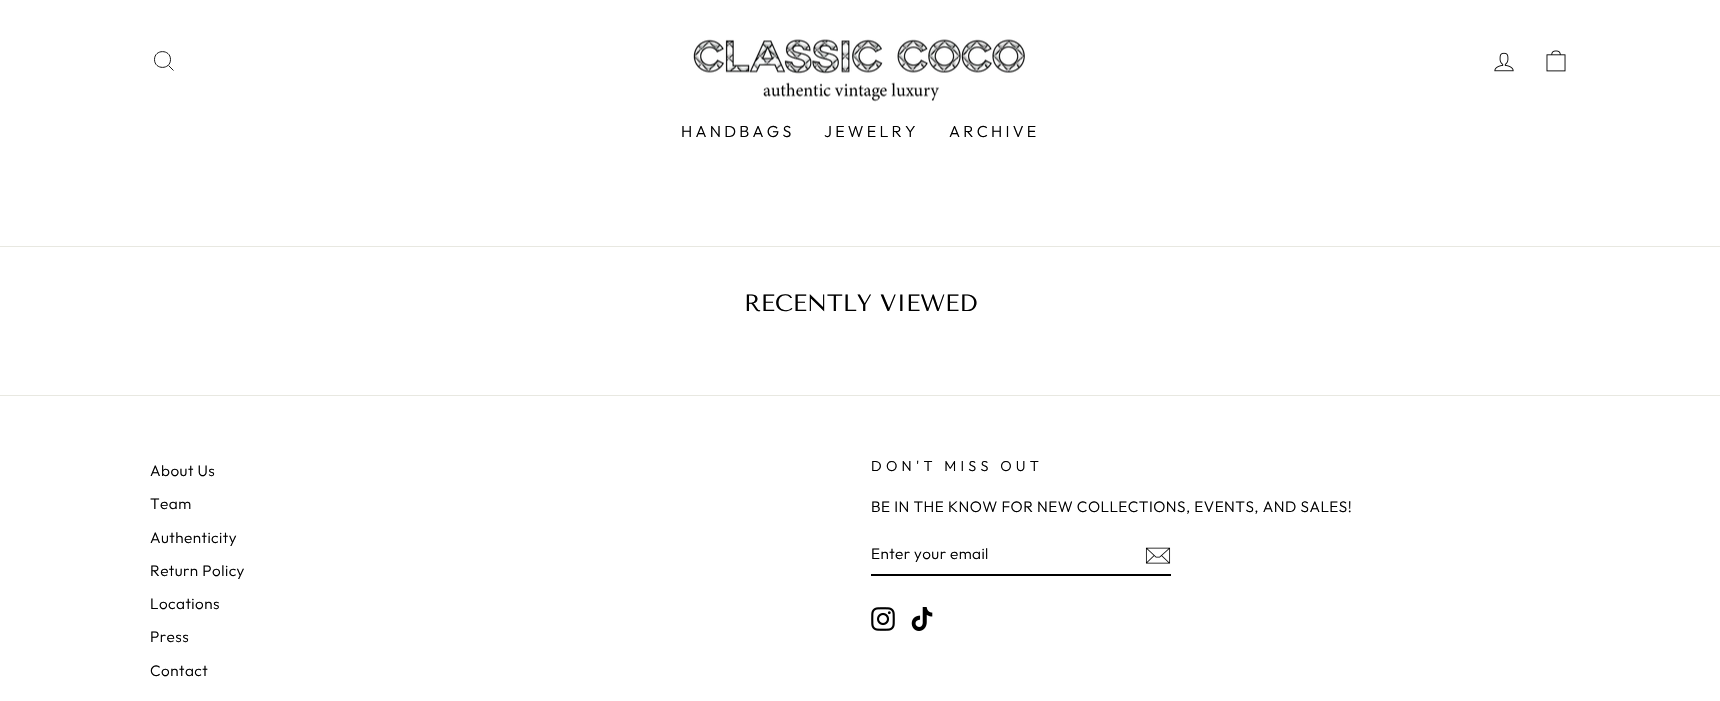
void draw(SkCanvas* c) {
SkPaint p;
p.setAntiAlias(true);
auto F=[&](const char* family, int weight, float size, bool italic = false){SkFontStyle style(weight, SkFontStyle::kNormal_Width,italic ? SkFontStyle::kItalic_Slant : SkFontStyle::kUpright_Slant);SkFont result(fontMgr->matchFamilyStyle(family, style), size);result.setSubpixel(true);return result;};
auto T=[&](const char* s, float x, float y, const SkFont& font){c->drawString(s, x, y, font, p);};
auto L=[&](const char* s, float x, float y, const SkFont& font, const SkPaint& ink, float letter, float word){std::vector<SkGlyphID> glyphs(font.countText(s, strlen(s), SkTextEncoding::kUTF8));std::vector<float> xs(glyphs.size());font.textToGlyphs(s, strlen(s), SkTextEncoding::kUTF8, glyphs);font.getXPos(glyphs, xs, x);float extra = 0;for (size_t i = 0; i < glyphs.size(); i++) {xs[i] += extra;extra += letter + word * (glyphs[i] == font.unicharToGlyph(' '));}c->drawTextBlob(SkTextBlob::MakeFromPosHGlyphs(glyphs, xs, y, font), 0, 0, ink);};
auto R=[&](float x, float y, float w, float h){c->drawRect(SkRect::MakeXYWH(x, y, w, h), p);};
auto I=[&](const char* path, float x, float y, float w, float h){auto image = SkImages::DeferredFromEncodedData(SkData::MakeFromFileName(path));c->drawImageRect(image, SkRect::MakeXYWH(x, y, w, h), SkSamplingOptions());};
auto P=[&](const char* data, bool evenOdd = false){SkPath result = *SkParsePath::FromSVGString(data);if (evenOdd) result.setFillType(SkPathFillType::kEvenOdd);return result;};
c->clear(0xffffffff);
p.setStroke(true);
p.setStrokeWidth(.9);
p.setColor(0xff000000);
c->drawPath(P("M170.5 59.5c0 10.5-16 10.5-16 0c0-10.5 16-10.5 16 0zm3 11l-5-5"),p);
I("1.png",693,39,332,63);
I("2.png",1494,52,20,20);
I("3.png",1546,50,20,22);
auto f1 = F("Outfit",300,16);
p.setStroke(false);
L("HANDBAGS",681,137,f1,p,3.25,0);
L("JEWELRY",824,137,f1,p,3.25,0);
L("ARCHIVE",949,137,f1,p,3.25,0);
p.setColor(0xffe8e8e1);
R(0,246,1720,1);
auto f2 = F("Tenor Sans",400,23.5);
p.setColor(0xff000000);
T("RECENTLY VIEWED",744,311,f2);
p.setColor(0xffe8e8e1);
R(0,395,1720,1);
auto f3 = F("Outfit",300,15.3);
p.setColor(0xff000000);
L("About Us",150,476,f3,p,.45,0);
L("Team",150,509,f3,p,.45,0);
L("Authenticity",150,543,f3,p,.45,0);
L("Return Policy",150,576,f3,p,.45,0);
L("Locations",150,609,f3,p,.45,0);
L("Press",150,642,f3,p,.45,0);
L("Contact",150,676,f3,p,.45,0);
auto f4 = F("Outfit",300,14.4);
L("DON'T MISS OUT",871,471,f4,p,4.25,0);
L("BE IN THE KNOW FOR NEW COLLECTIONS, EVENTS, AND SALES!",871,512,f3,p,.45,0);
R(871,574,300,2);
L("Enter your email",871,559,f3,p,.4,0);
I("4.png",1145,547,26,17);
I("5.png",871,607,24,24);
I("6.png",911,607,22,24);
}
